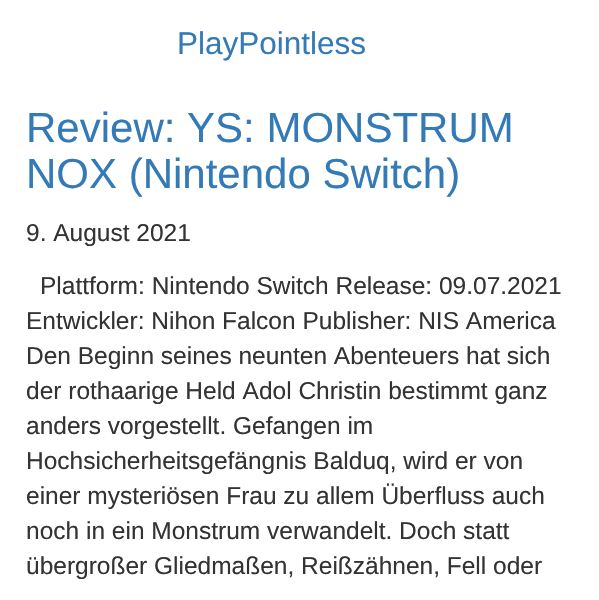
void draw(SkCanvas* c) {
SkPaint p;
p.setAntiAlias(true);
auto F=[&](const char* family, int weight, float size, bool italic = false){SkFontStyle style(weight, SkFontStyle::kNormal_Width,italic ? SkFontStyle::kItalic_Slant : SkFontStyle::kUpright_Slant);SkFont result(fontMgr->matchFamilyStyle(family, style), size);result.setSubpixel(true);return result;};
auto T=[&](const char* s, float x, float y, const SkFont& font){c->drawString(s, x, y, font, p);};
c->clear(0xffffffff);
auto f1 = F("Liberation Sans",400,31.5);
p.setColor(0xff337ab7);
T("PlayPointless",177,54,f1);
auto f2 = F("Liberation Sans",400,42);
T("Review: YS: MONSTRUM",26,142,f2);
T("NOX (Nintendo Switch)",26,188,f2);
auto f3 = F("Liberation Sans",400,24.5);
p.setColor(0xff333333);
T("9. August 2021",26,241,f3);
T("Plattform: Nintendo Switch Release: 09.07.2021",40,294,f3);
T("Entwickler: Nihon Falcon Publisher: NIS America",26,329,f3);
T("Den Beginn seines neunten Abenteuers hat sich",26,364,f3);
T("der rothaarige Held Adol Christin bestimmt ganz",26,399,f3);
T("anders vorgestellt. Gefangen im",26,434,f3);
T("Hochsicherheitsgefängnis Balduq, wird er von",26,469,f3);
T("einer mysteriösen Frau zu allem Überfluss auch",26,504,f3);
T("noch in ein Monstrum verwandelt. Doch statt",26,539,f3);
T("übergroßer Gliedmaßen, Reißzähnen, Fell oder",26,574,f3);
}
